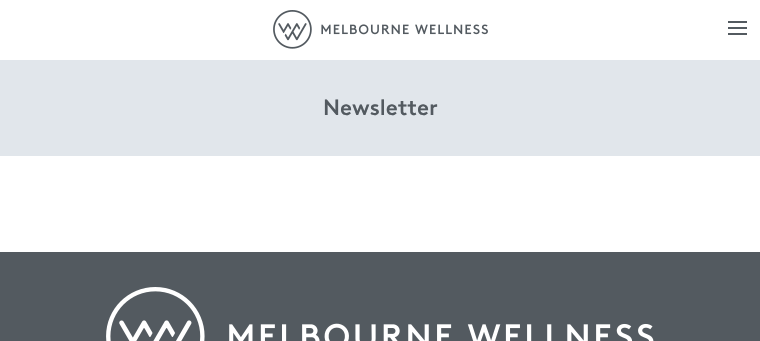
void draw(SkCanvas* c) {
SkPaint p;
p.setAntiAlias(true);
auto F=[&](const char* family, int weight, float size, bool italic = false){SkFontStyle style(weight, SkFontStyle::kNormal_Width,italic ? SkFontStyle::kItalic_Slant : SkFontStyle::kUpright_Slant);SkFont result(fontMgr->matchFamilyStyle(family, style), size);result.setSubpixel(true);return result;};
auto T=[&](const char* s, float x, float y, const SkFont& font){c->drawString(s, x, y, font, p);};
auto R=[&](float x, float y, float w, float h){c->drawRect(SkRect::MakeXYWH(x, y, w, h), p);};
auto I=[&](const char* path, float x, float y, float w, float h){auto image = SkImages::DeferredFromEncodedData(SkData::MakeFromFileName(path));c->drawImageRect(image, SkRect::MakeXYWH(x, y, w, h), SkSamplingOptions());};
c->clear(0xffffffff);
I("1.png",273,10,215,39);
p.setColor(0xff535a60);
R(728,27,19,2);
R(728,21,19,2);
R(728,33,19,2);
p.setColor(0xffe1e6eb);
R(0,60,760,96);
auto f1 = F("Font",500,22);
p.setColor(0xff535a60);
T("Newsletter",323,115,f1);
R(0,252,760,89);
I("2.png",106,287,548,54);
}
